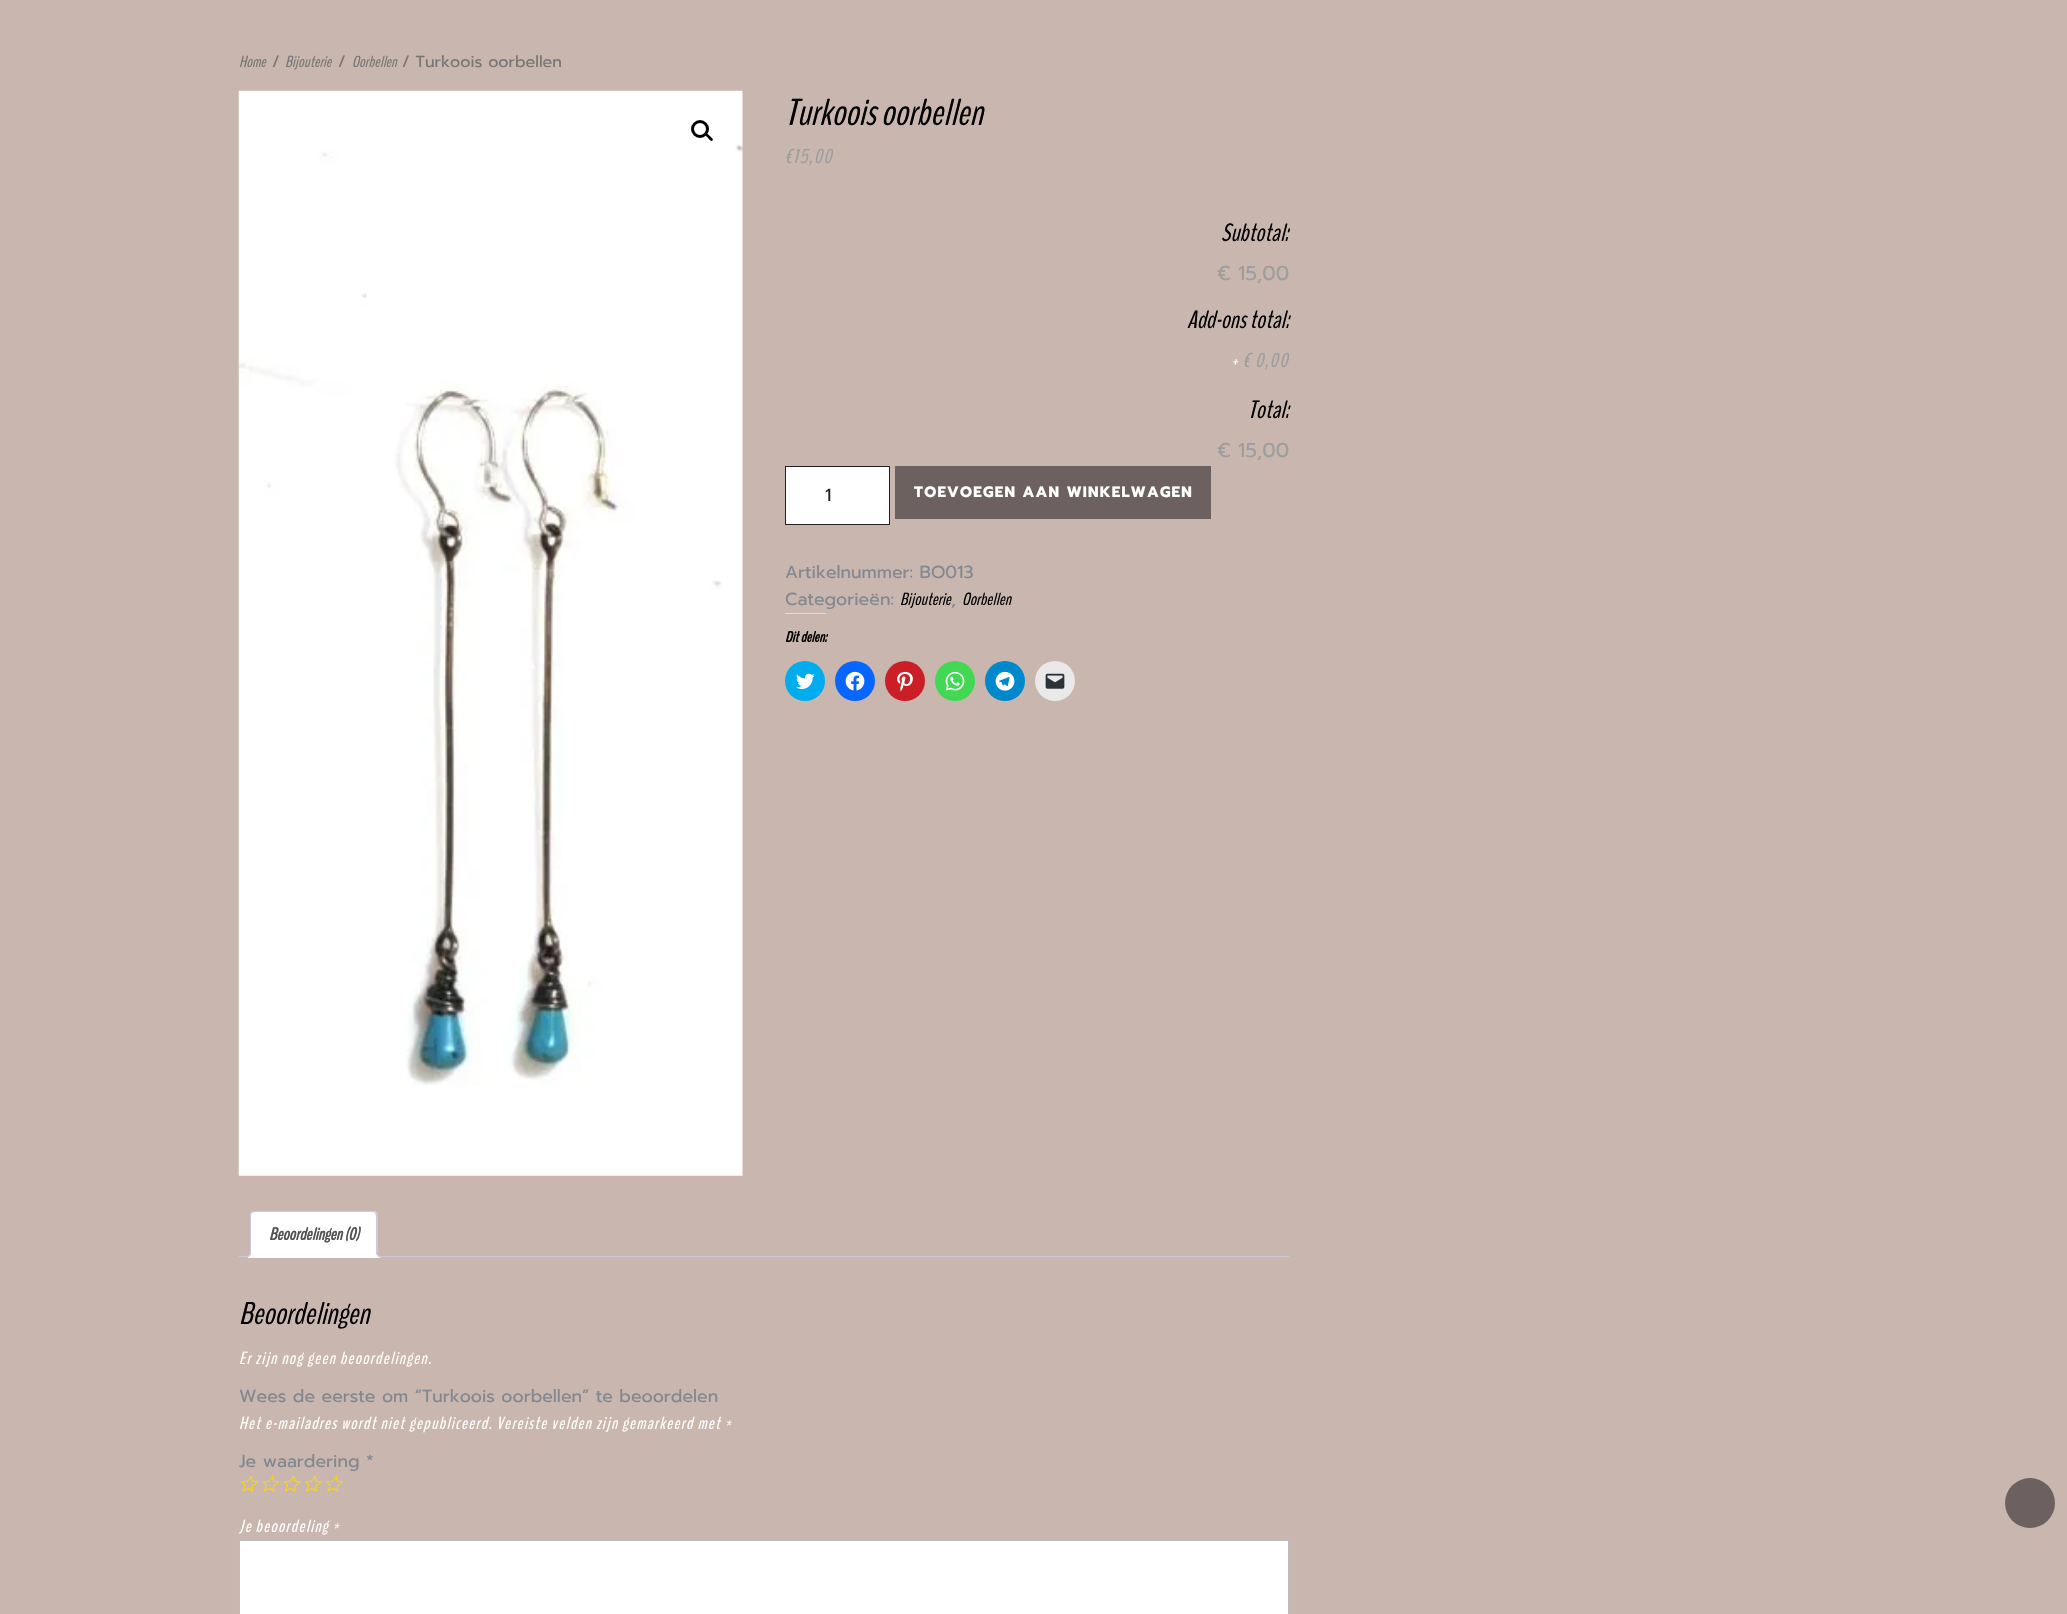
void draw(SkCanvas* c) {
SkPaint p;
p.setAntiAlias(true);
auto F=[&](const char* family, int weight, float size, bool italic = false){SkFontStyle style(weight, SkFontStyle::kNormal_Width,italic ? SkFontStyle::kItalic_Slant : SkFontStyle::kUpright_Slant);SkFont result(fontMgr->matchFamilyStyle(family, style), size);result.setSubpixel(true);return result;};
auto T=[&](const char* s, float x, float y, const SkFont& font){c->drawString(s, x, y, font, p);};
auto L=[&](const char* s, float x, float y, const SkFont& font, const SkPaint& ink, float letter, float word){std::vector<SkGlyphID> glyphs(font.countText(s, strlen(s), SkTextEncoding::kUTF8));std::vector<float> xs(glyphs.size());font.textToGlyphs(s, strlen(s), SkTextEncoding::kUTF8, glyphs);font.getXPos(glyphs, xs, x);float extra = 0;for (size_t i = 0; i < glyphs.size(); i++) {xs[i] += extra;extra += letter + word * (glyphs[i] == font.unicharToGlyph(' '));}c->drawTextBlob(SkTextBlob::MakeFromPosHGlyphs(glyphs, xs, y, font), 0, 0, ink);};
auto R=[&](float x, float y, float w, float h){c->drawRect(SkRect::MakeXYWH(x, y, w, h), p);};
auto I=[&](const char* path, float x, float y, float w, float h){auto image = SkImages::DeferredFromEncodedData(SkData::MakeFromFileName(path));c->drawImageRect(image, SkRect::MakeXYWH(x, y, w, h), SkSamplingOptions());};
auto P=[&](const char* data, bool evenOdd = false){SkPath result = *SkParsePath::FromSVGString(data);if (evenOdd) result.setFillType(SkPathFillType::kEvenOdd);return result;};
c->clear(0xffc8b6af);
auto f1 = F("BenchNine",400,16,true);
p.setColor(0xff767676);
T("Home",239,67,f1);
auto f2 = F("Prompt",400,16);
T("/",272,67,f2);
T("Bijouterie",285,67,f1);
T("/",338,67,f2);
T("Oorbellen",352,67,f1);
T("/ Turkoois oorbellen",402,67,f2);
I("1.png",238,90,505,1086);
p.setStroke(true);
p.setStrokeWidth(3);
p.setColor(0xff000000);
c->drawCircle(700,129,7.5,p);
p.setStroke(false);
c->drawPath(P("M705.5 133.5c1.5-1.5 3.5 2 4.5 2.5c.5 1 4 3 2.5 4.5c-1.5 1.5-3.5-1.5-4.5-2.5c-.5-1-4-3-2.5-4.5z"),p);
auto f3 = F("BenchNine",400,37.5,true);
T("Turkoois oorbellen",785,125,f3);
auto f4 = F("BenchNine",400,20,true);
p.setColor(0xff9d9d9d);
L("€15,00",785,163,f4,p,1.25,0);
auto f5 = F("BenchNine",400,25,true);
p.setColor(0xff000000);
T("Subtotal:",1221,241,f5);
auto f6 = F("Prompt",400,20);
p.setColor(0xff9d9d9d);
T("€ 15,00",1217,280,f6);
p.setColor(0xff000000);
T("Add-ons total:",1187,328,f5);
auto f7 = F("BenchNine",400,17.5,true);
p.setColor(0xffffffff);
L("+",1231,367,f7,p,1.25,0);
p.setColor(0xff9d9d9d);
L("€ 0,00",1243,367,f4,p,1.25,0);
p.setColor(0xff000000);
T("Total:",1248,418,f5);
p.setColor(0xff9d9d9d);
T("€ 15,00",1217,457,f6);
p.setColor(0xffffffff);
c->drawRect(SkRect::MakeXYWH(785.5,466.5,104,58),p);
p.setStroke(true);
p.setStrokeWidth(1);
p.setColor(0xff222222);
c->drawRect(SkRect::MakeXYWH(785.5,466.5,104,58),p);
auto f8 = F("Prompt",400,17.5);
p.setStroke(false);
T("1",825,501,f8);
p.setColor(0xff6d6060);
R(895,466,316,53);
auto f9 = F("Prompt",700,15);
p.setColor(0xffffffff);
L("TOEVOEGEN AAN WINKELWAGEN",914,497,f9,p,1.25,0);
p.setColor(0xff828790);
T("Artikelnummer: BO013",785,578,f8);
T("Categorieën:",785,605,f8);
p.setColor(0xff000000);
T("Bijouterie",900,605,f7);
p.setColor(0xff828790);
T(",",951,605,f8);
p.setColor(0xff000000);
T("Oorbellen",962,605,f7);
p.setColor(0xffdcdcde);
R(785,613,41,1);
auto f10 = F("BenchNine",700,15,true);
p.setColor(0xff000000);
T("Dit delen:",785,642,f10);
p.setColor(0xff00acee);
c->drawCircle(805,681,20,p);
I("2.png",796,673,19,16);
p.setColor(0xff0866ff);
c->drawCircle(855,681,20,p);
I("3.png",845,671,20,20);
p.setColor(0xffca1f27);
c->drawCircle(905,681,20,p);
I("4.png",897,671,16,21);
p.setColor(0xff43d854);
c->drawCircle(955,681,20,p);
I("5.png",945,671,20,20);
p.setColor(0xff0088cc);
c->drawCircle(1005,681,20,p);
I("6.png",995,671,20,20);
p.setColor(0xffe9e9e9);
c->drawCircle(1055,681,20,p);
I("7.png",1045,673,20,16);
p.setColor(0xffcfc8d8);
R(239,1256,1050,1);
p.setColor(0xffffffff);
c->drawPath(P("M255 1211h118c3 0 5 2 5 5v42h-128v-42c0-3 2-5 5-5z"),p);
c->save();
c->clipRect(SkRect::MakeXYWH(239,1211,1050,47));
p.setColor(0xffcfc8d8);
c->drawPath(P("M255 1212l-3 1h-1c5-6 15-2 22-2h101l2 1l-1 1c0 0-1-1-3-1z"),p);
c->restore();
c->drawPath(P("M376 1212l2 2v44l-2-2v-40l-1-3z"),p);
p.setColor(0xffffffff);
c->drawPath(P("M378 1258l-2-2h-124l-2 2z"),p);
p.setColor(0xffcfc8d8);
c->drawPath(P("M250 1258l2-2h-1v-40c0-1 0-2 1-3h-1c-1 0-1 2-1 3z"),p);
auto f11 = F("BenchNine",700,17.5,true);
p.setColor(0xff515151);
T("Beoordelingen (0)",269,1240,f11);
c->save();
c->clipRect(SkRect::MakeXYWH(239,1211,1050,47));
p.setColor(0xffffffff);
c->drawPath(P("M248 1257v3c4 0 6-2 6-6h-3c-.5 1.5-1.5 2.5-3 3z"),p);
c->restore();
p.setColor(0xffcfc8d8);
c->drawPath(P("M245 1251h6c0 4.5-1.5 6.5-6 6.5zm0 0h5c0 4-1.5 5-5 5z",true),p);
c->save();
c->clipRect(SkRect::MakeXYWH(239,1211,1050,47));
p.setColor(0xffffffff);
c->drawPath(P("M374 1254c0 4 2 6 6 6v-2.5c-1.5-.5-3-2-3.5-3.5z"),p);
c->restore();
p.setColor(0xffcfc8d8);
c->drawPath(P("M376 1251h6.5v6.5c-3 0-6.5-1.5-6.5-5zm1.5 0h5v5c-2.5 0-5-.5-5-3.5z",true),p);
auto f12 = F("BenchNine",400,31.25,true);
p.setColor(0xff000000);
T("Beoordelingen",239,1324,f12);
p.setColor(0xffffffff);
L("Er zijn nog geen beoordelingen.",239,1364,f7,p,1.25,0);
p.setColor(0xff828790);
T("Wees de eerste om “Turkoois oorbellen” te beoordelen",239,1402,f8);
p.setColor(0xffffffff);
L("Het e-mailadres wordt niet gepubliceerd. Vereiste velden zijn gemarkeerd met *",239,1429,f7,p,1.25,0);
p.setColor(0xff828790);
T("Je waardering *",239,1467,f8);
I("8.png",241,1475,18,17);
I("9.png",262,1475,18,17);
I("10.png",283,1475,18,17);
I("11.png",305,1475,18,17);
I("8.png",326,1475,18,17);
p.setColor(0xffffffff);
L("Je beoordeling *",239,1532,f7,p,1.25,0);
c->drawRect(SkRect::MakeXYWH(239.5,1540.5,1049,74),p);
p.setStroke(true);
p.setColor(0xffbcbcbc);
c->drawRect(SkRect::MakeXYWH(239.5,1540.5,1049,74),p);
p.setStroke(false);
p.setColor(0xff6d6060);
c->drawCircle(2030,1503,25,p);
}
